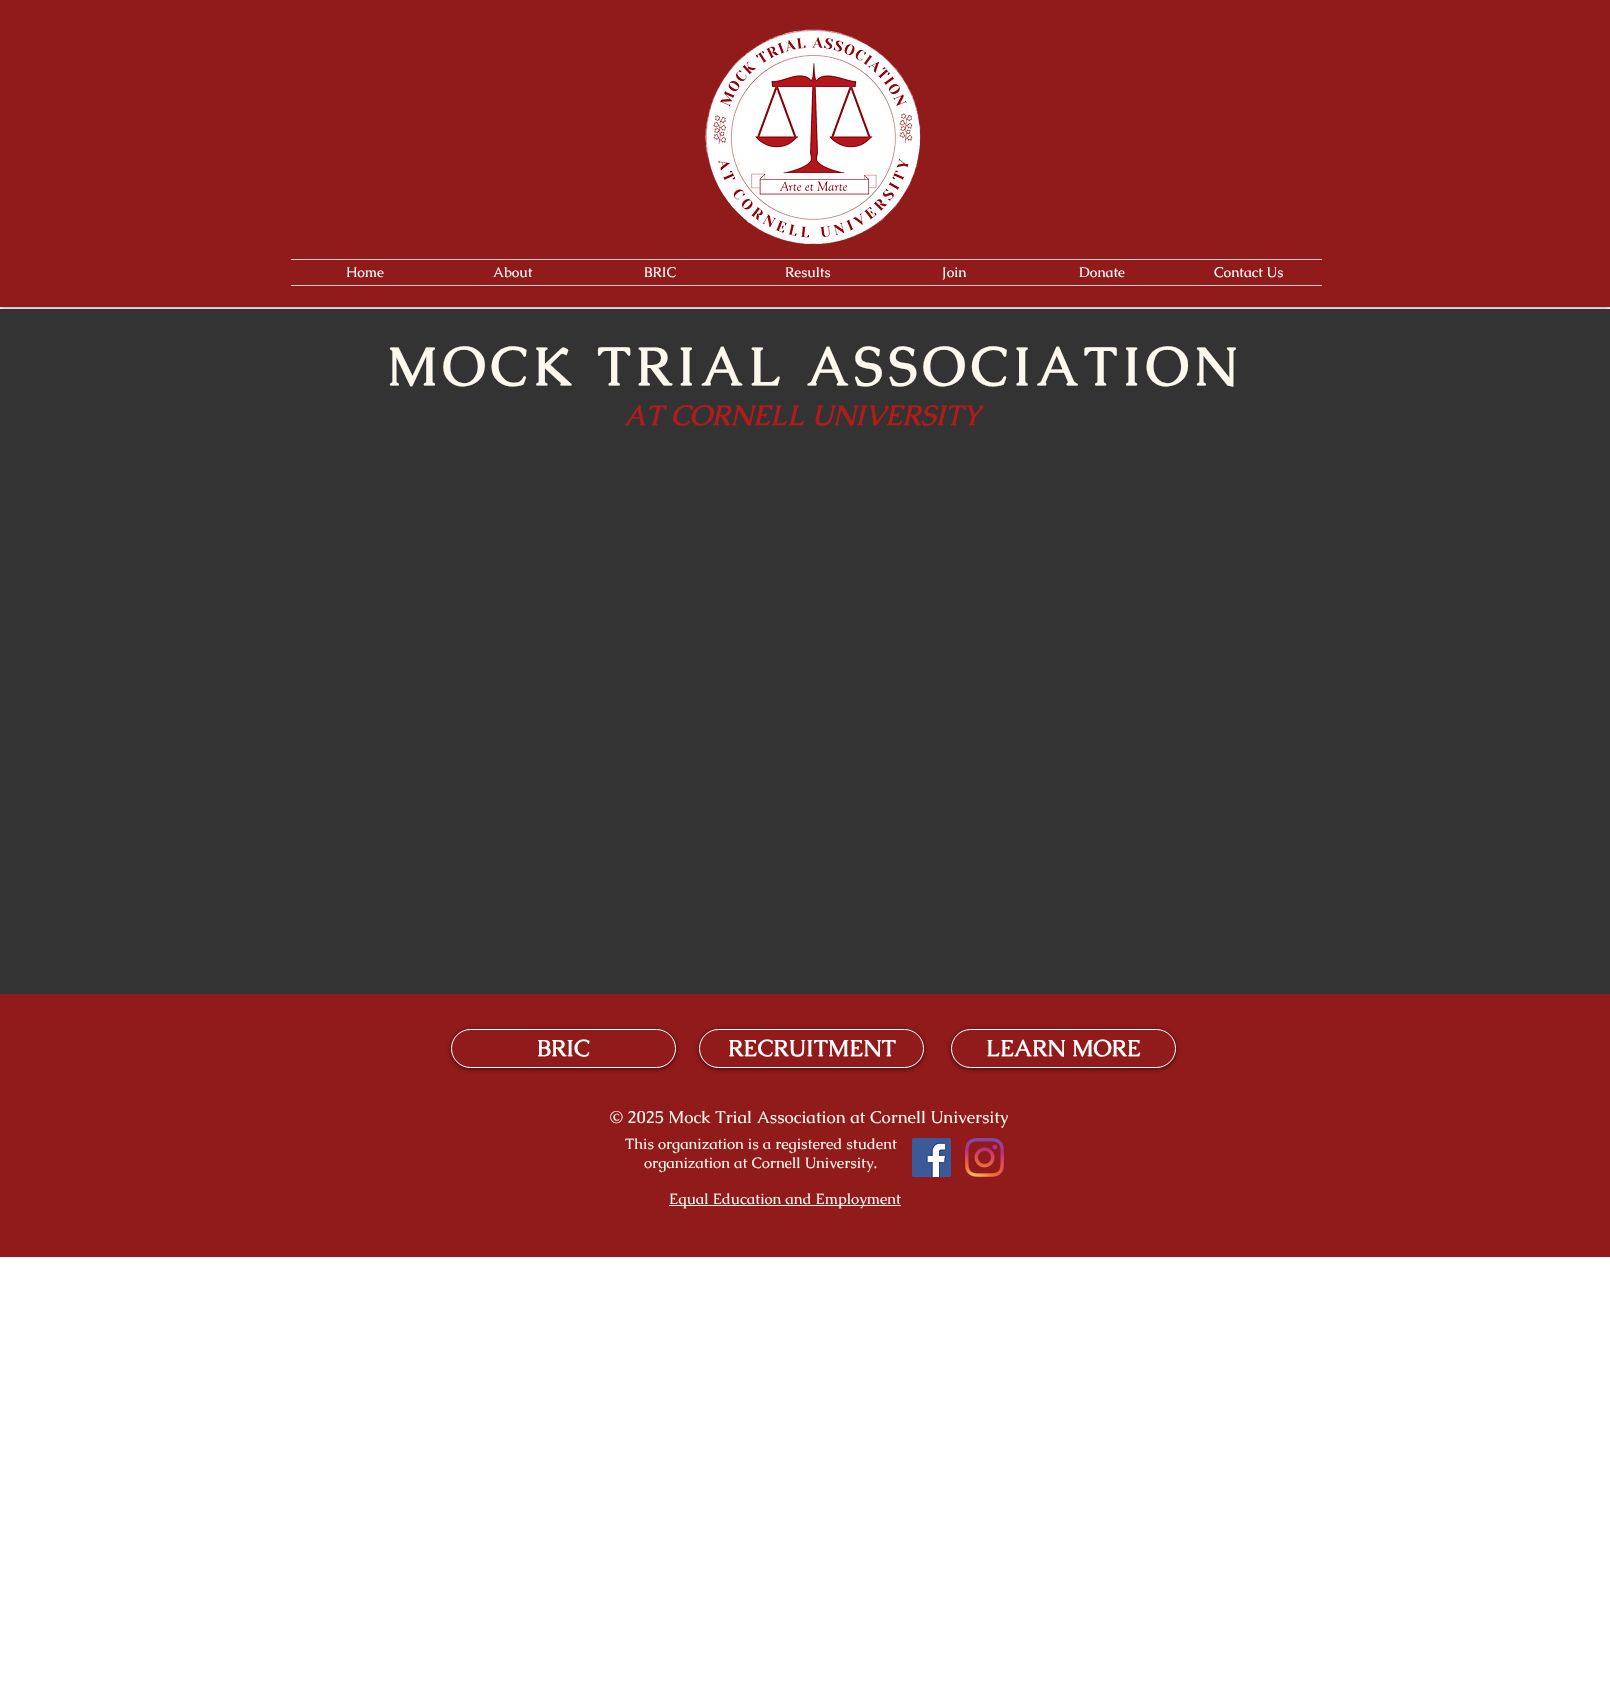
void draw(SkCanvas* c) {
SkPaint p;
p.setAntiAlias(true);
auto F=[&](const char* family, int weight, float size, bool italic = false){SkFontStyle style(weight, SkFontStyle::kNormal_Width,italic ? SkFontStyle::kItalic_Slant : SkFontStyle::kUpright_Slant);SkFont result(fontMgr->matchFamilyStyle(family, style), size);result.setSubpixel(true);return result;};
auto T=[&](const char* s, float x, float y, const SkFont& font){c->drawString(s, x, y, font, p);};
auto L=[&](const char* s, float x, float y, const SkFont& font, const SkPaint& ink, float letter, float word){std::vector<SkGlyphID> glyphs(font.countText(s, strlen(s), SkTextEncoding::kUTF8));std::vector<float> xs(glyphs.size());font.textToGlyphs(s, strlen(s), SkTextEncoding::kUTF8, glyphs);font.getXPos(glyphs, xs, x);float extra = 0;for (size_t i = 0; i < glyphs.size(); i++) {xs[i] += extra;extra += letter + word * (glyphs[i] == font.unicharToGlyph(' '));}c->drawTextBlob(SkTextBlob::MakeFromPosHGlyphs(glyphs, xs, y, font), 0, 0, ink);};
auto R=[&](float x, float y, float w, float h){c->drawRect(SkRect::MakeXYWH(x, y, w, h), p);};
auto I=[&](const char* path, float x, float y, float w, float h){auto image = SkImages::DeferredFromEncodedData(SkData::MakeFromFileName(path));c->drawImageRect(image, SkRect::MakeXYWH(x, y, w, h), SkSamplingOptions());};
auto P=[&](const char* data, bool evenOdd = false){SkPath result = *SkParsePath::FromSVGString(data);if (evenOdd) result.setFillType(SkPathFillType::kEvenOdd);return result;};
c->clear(0xffffffff);
p.setColor(0x80000000);
p.setMaskFilter(SkMaskFilter::MakeBlur(kNormal_SkBlurStyle, 2.5));
c->drawRect(SkRect::MakeXYWH(0,0,1610,307),p);
p.setMaskFilter(nullptr);
p.setColor(0xff911a1a);
R(0,0,1610,307);
I("1.png",705,29,216,216);
p.setColor(0xffcccccc);
R(291,259,1031,1);
R(291,285,1031,1);
auto f1 = F("Caudex",400,14);
p.setColor(0xffffffff);
T("Home",346,277,f1);
T("About",493,277,f1);
T("BRIC",644,277,f1);
T("Results",785,277,f1);
T("Join",942,277,f1);
T("Donate",1079,277,f1);
T("Contact Us",1214,277,f1);
p.setColor(0xff333333);
R(0,309,1610,685);
auto f2 = F("Caudex",700,54);
p.setColor(0xfffcf8ed);
L("MOCK TRIAL ASSOCIATION",387,385,f2,p,5.4,0);
auto f3 = F("Caudex",700,28,true);
p.setColor(0xffb31b1b);
T("AT CORNELL UNIVERSITY",624,425,f3);
p.setColor(0xff911a1a);
R(0,994,1610,263);
c->save();
c->clipPath(P("M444 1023h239v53h-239zm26.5 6h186c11 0 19.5 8.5 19.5 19.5c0 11-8.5 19.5-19.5 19.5h-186c-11 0-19.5-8.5-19.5-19.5c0-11 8.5-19.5 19.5-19.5z",true),true);
p.setColor(0x99000000);
p.setMaskFilter(SkMaskFilter::MakeBlur(kNormal_SkBlurStyle, 2));
c->drawRoundRect(SkRect::MakeXYWH(451,1030,225,39),19.5,19.5,p);
p.setMaskFilter(nullptr);
c->restore();
p.setColor(0x80911a1a);
c->drawRoundRect(SkRect::MakeXYWH(451.5,1029.5,224,38),19,19,p);
p.setStroke(true);
p.setStrokeWidth(1);
p.setColor(0xffffffff);
c->drawRoundRect(SkRect::MakeXYWH(451.5,1029.5,224,38),19,19,p);
auto f4 = F("Caudex",700,23);
p.setStroke(false);
T("BRIC",537,1056,f4);
c->save();
c->clipPath(P("M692 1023h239v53h-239zm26.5 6h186c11 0 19.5 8.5 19.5 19.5c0 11-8.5 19.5-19.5 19.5h-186c-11 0-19.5-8.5-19.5-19.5c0-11 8.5-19.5 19.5-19.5z",true),true);
p.setColor(0x99000000);
p.setMaskFilter(SkMaskFilter::MakeBlur(kNormal_SkBlurStyle, 2));
c->drawRoundRect(SkRect::MakeXYWH(699,1030,225,39),19.5,19.5,p);
p.setMaskFilter(nullptr);
c->restore();
p.setColor(0x80911a1a);
c->drawRoundRect(SkRect::MakeXYWH(699.5,1029.5,224,38),19,19,p);
p.setStroke(true);
p.setColor(0xffffffff);
c->drawRoundRect(SkRect::MakeXYWH(699.5,1029.5,224,38),19,19,p);
p.setStroke(false);
T("RECRUITMENT",728,1056,f4);
c->save();
c->clipPath(P("M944 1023h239v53h-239zm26.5 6h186c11 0 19.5 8.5 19.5 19.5c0 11-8.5 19.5-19.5 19.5h-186c-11 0-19.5-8.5-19.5-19.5c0-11 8.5-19.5 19.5-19.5z",true),true);
p.setColor(0x99000000);
p.setMaskFilter(SkMaskFilter::MakeBlur(kNormal_SkBlurStyle, 2));
c->drawRoundRect(SkRect::MakeXYWH(951,1030,225,39),19.5,19.5,p);
p.setMaskFilter(nullptr);
c->restore();
p.setColor(0x80911a1a);
c->drawRoundRect(SkRect::MakeXYWH(951.5,1029.5,224,38),19,19,p);
p.setStroke(true);
p.setColor(0xffffffff);
c->drawRoundRect(SkRect::MakeXYWH(951.5,1029.5,224,38),19,19,p);
p.setStroke(false);
T("LEARN MORE",986,1056,f4);
auto f5 = F("Caudex",400,17);
p.setColor(0xfffcf8ed);
T("© 2025 Mock Trial Association at Cornell University",610,1123,f5);
auto f6 = F("Caudex",400,15);
T("This organization is a registered student",625,1149,f6);
T("organization at Cornell University.",644,1168,f6);
R(669,1205,232,1);
T("Equal Education and Employment",669,1204,f6);
I("2.png",912,1138,39,39);
I("3.png",965,1138,39,39);
}
